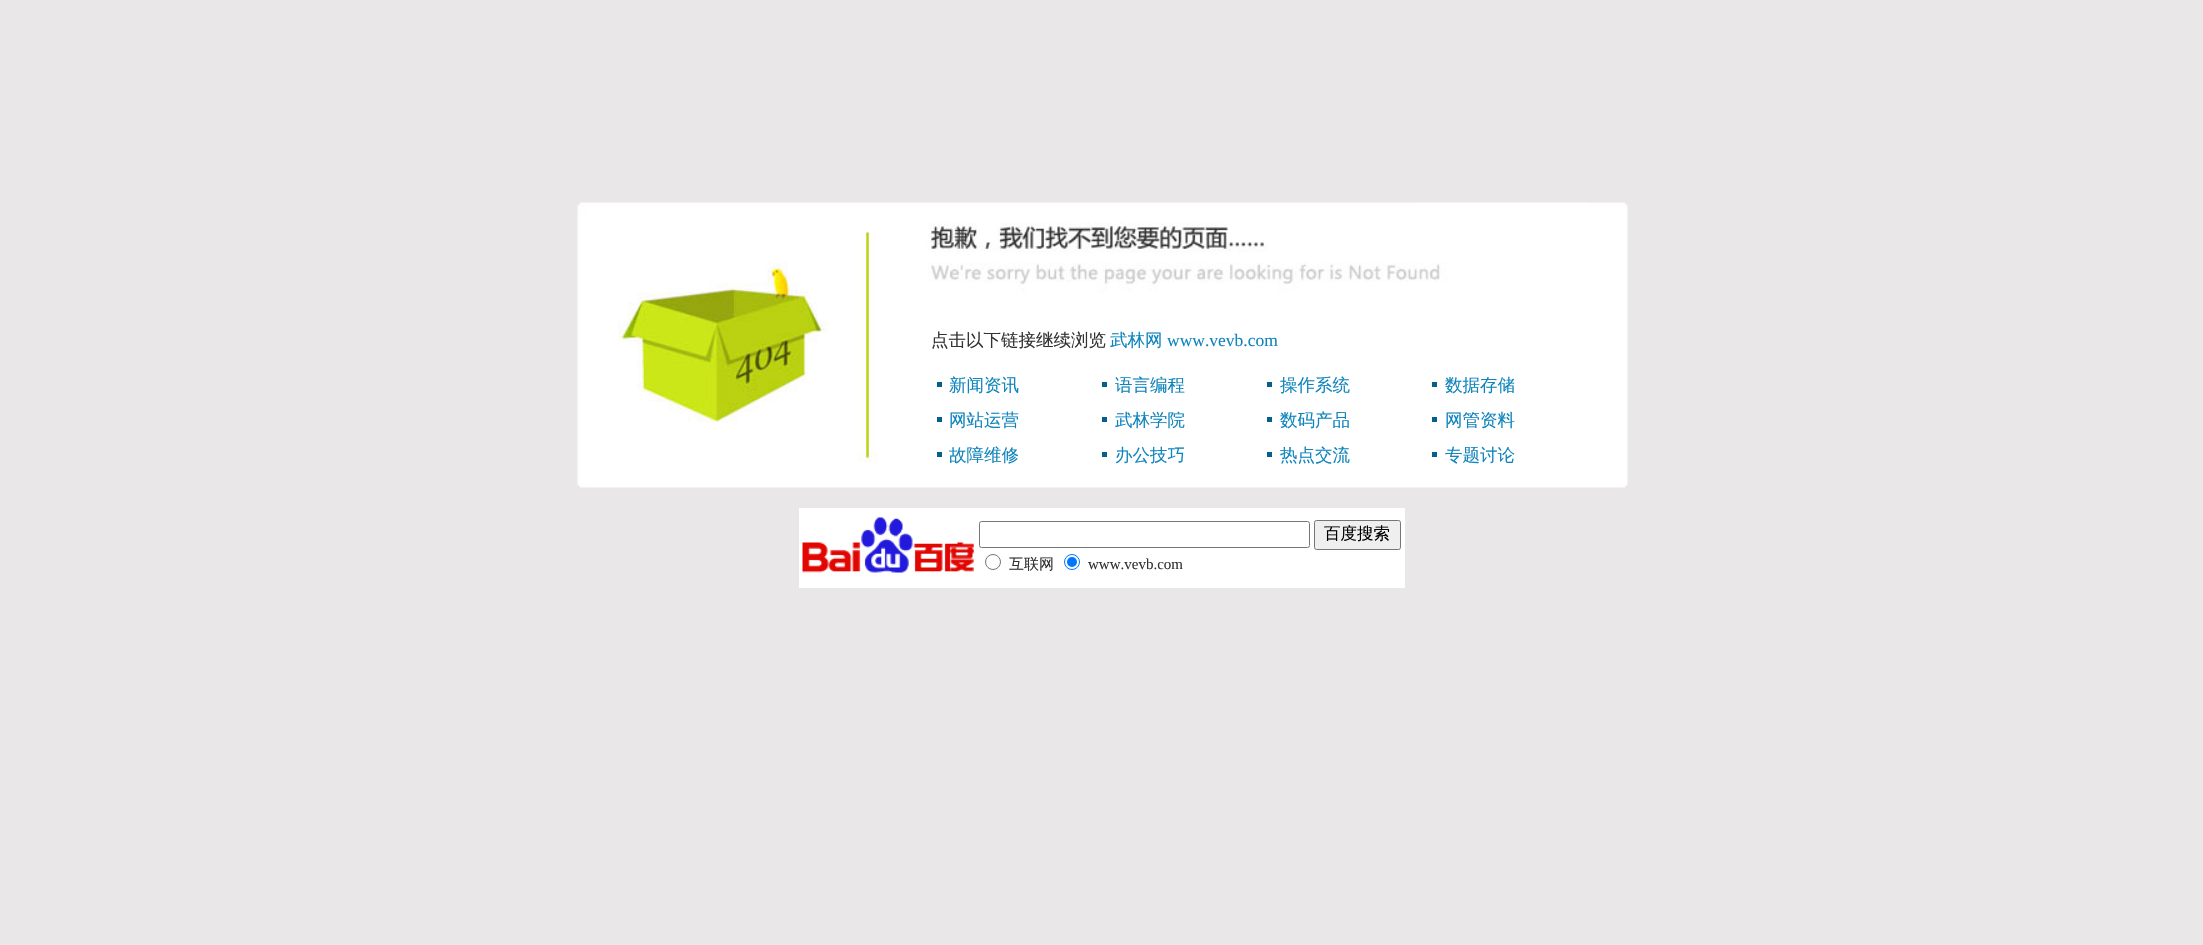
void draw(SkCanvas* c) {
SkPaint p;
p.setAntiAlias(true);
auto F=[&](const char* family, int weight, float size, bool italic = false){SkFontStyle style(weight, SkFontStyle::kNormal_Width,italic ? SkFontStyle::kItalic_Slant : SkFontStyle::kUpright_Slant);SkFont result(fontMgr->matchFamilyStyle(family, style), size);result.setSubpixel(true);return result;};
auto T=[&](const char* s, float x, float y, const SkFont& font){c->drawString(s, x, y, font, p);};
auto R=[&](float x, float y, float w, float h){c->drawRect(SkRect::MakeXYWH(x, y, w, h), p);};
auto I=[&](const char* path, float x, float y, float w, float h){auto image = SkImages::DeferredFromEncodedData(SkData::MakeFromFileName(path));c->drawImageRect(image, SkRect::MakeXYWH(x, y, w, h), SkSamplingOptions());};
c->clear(0xffe9e7e7);
I("1.png",577,202,1051,286);
auto f1 = F("WenQuanYi Zen Hei",500,17.5);
p.setColor(0xff333333);
T("点击以下链接继续浏览",931,346,f1);
p.setColor(0xff0f84bd);
T("武林网",1110,346,f1);
auto f2 = F("Liberation Serif",400,17.5);
T("www.vevb.com",1167,346,f2);
p.setColor(0xff045f8c);
R(937,382,5,5);
p.setColor(0xff0f84bd);
T("新闻资讯",949,391,f1);
p.setColor(0xff045f8c);
R(1102,382,5,5);
p.setColor(0xff0f84bd);
T("语言编程",1115,391,f1);
p.setColor(0xff045f8c);
R(1267,382,5,5);
p.setColor(0xff0f84bd);
T("操作系统",1280,391,f1);
p.setColor(0xff045f8c);
R(1432,382,5,5);
p.setColor(0xff0f84bd);
T("数据存储",1445,391,f1);
p.setColor(0xff045f8c);
R(937,417,5,5);
p.setColor(0xff0f84bd);
T("网站运营",949,426,f1);
p.setColor(0xff045f8c);
R(1102,417,5,5);
p.setColor(0xff0f84bd);
T("武林学院",1115,426,f1);
p.setColor(0xff045f8c);
R(1267,417,5,5);
p.setColor(0xff0f84bd);
T("数码产品",1280,426,f1);
p.setColor(0xff045f8c);
R(1432,417,5,5);
p.setColor(0xff0f84bd);
T("网管资料",1445,426,f1);
p.setColor(0xff045f8c);
R(937,452,5,5);
p.setColor(0xff0f84bd);
T("故障维修",949,461,f1);
p.setColor(0xff045f8c);
R(1102,452,5,5);
p.setColor(0xff0f84bd);
T("办公技巧",1115,461,f1);
p.setColor(0xff045f8c);
R(1267,452,5,5);
p.setColor(0xff0f84bd);
T("热点交流",1280,461,f1);
p.setColor(0xff045f8c);
R(1432,452,5,5);
p.setColor(0xff0f84bd);
T("专题讨论",1445,461,f1);
p.setColor(0xffffffff);
R(799,508,606,80);
I("2.png",802,517,172,56);
p.setStroke(true);
p.setStrokeWidth(1);
p.setColor(0xff767676);
c->drawRoundRect(SkRect::MakeXYWH(979.5,521.5,330,26),2,2,p);
p.setStroke(false);
p.setColor(0xffefefef);
c->drawRoundRect(SkRect::MakeXYWH(1314.5,520.5,86,29),2,2,p);
p.setStroke(true);
p.setColor(0xff767676);
c->drawRoundRect(SkRect::MakeXYWH(1314.5,520.5,86,29),2,2,p);
auto f3 = F("WenQuanYi Zen Hei",500,16.5);
p.setStroke(false);
p.setColor(0xff000000);
T("百度搜索",1324,539,f3);
p.setStroke(true);
p.setColor(0xff767676);
c->drawCircle(993,562,7.5,p);
auto f4 = F("WenQuanYi Zen Hei",500,15);
p.setStroke(false);
p.setColor(0xff333333);
T("互联网",1009,569,f4);
p.setStroke(true);
p.setColor(0xff0075ff);
c->drawCircle(1072,562,7.5,p);
p.setStroke(false);
c->drawCircle(1072,562,5,p);
auto f5 = F("Liberation Serif",400,15);
p.setColor(0xff333333);
T("www.vevb.com",1088,569,f5);
}
